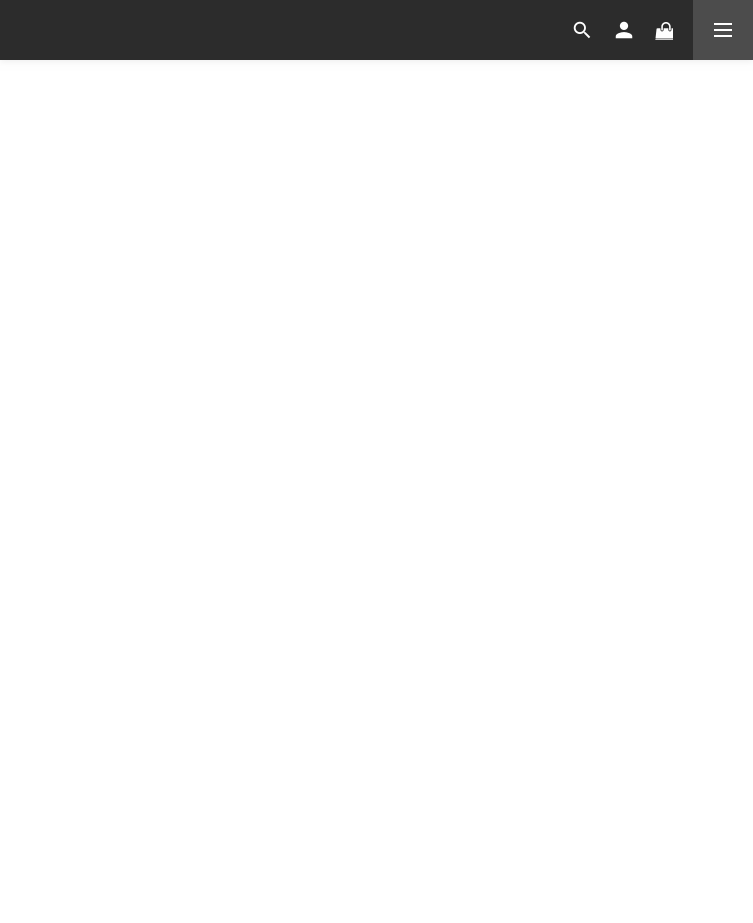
void draw(SkCanvas* c) {
SkPaint p;
p.setAntiAlias(true);
auto R=[&](float x, float y, float w, float h){c->drawRect(SkRect::MakeXYWH(x, y, w, h), p);};
auto I=[&](const char* path, float x, float y, float w, float h){auto image = SkImages::DeferredFromEncodedData(SkData::MakeFromFileName(path));c->drawImageRect(image, SkRect::MakeXYWH(x, y, w, h), SkSamplingOptions());};
c->clear(0xffffffff);
p.setColor(0x0f000000);
p.setMaskFilter(SkMaskFilter::MakeBlur(kNormal_SkBlurStyle, 3));
c->drawRect(SkRect::MakeXYWH(0,2,753,60),p);
p.setMaskFilter(nullptr);
p.setColor(0xff2c2c2c);
R(0,0,693,60);
I("1.png",573,21,18,18);
I("2.png",615,21,18,18);
I("3.png",655,22,18,18);
p.setColor(0xff4c4c4c);
R(693,0,60,60);
p.setColor(0xffffffff);
R(714,29,18,2);
R(714,23,18,2);
R(714,35,18,2);
}
